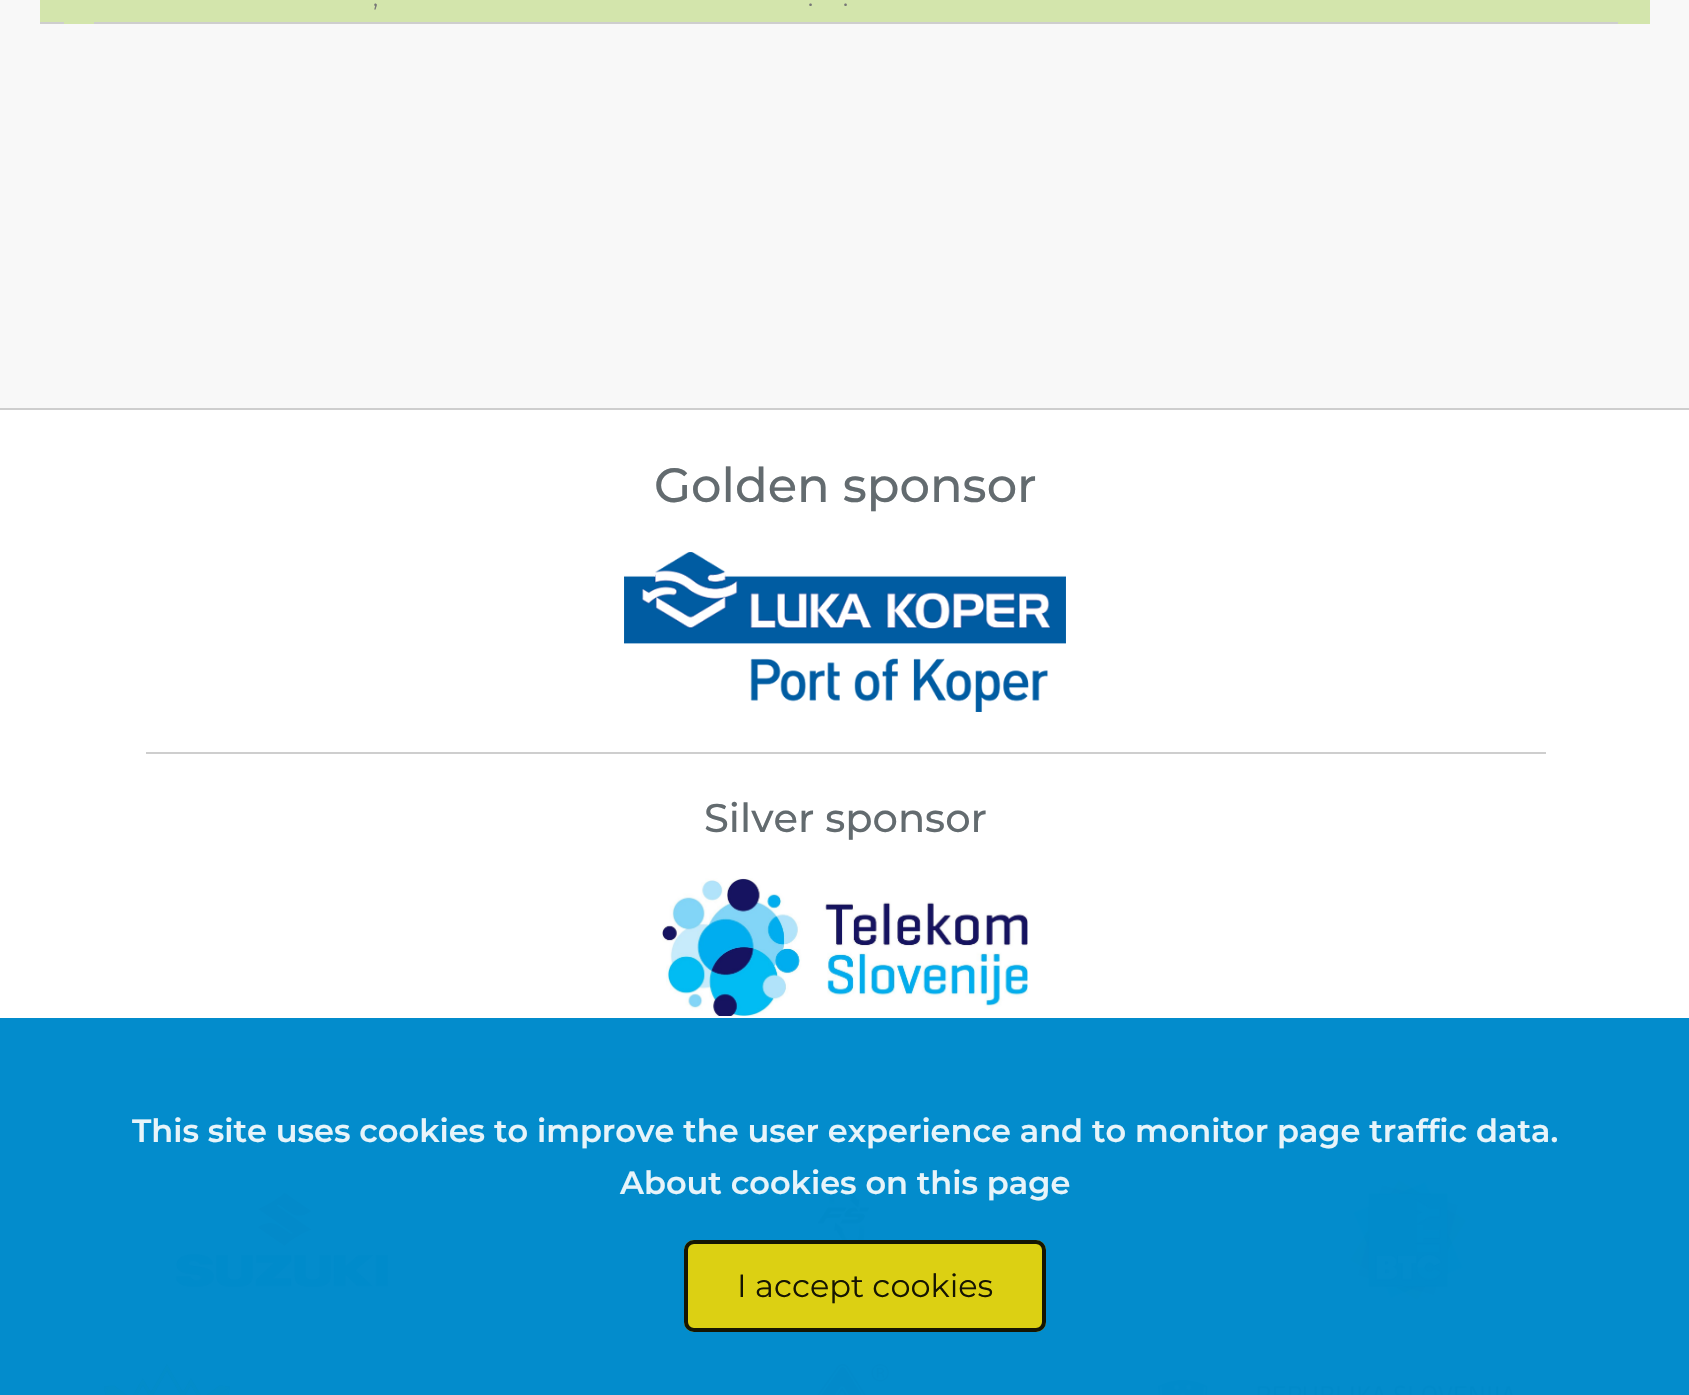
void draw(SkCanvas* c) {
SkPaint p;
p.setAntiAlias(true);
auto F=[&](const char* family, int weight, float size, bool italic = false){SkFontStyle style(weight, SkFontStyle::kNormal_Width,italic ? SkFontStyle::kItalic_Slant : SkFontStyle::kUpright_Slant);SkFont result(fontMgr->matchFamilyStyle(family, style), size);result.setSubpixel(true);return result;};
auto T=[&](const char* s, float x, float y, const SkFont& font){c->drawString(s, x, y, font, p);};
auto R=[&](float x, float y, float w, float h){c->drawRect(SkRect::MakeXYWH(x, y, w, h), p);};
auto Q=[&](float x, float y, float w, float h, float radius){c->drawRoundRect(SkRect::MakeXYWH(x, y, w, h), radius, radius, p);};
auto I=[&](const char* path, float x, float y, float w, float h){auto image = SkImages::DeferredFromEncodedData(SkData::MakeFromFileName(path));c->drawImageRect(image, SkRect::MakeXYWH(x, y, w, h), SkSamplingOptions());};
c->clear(0xffffffff);
p.setColor(0xfff8f8f8);
R(0,0,1689,408);
p.setColor(0xffd3e5ac);
R(40,0,1610,24);
auto f1 = F("Montserrat",400,24);
p.setColor(0xff777777);
T(",",373,6,f1);
T(".",808,6,f1);
T(".",843,6,f1);
p.setColor(0xffcecece);
R(40,22,24,2);
R(94,22,1524,2);
R(146,1058,1400,2);
I("3.png",175,1192,213,96);
I("4.png",780,1182,133,117);
I("5.png",1350,1180,116,120);
I("6.png",103,1364,128,31);
I("7.png",817,1364,72,31);
I("8.png",1158,1380,355,15);
p.setColor(0xe6008bcb);
R(0,1018,1689,377);
p.setColor(0xe6f1d600);
Q(684,1240,362,92,10);
p.setStroke(true);
p.setStrokeWidth(4);
p.setColor(0xe6000000);
c->drawRoundRect(SkRect::MakeXYWH(686,1242,358,88),8,8,p);
p.setStroke(false);
p.setColor(0xffcecece);
R(0,408,1689,2);
R(146,752,1400,2);
auto f2 = F("Montserrat",500,48);
p.setColor(0xff636b6f);
T("Golden sponsor",654,502,f2);
I("1.png",624,552,442,160);
auto f3 = F("Montserrat",500,40);
T("Silver sponsor",704,832,f3);
I("2.png",662,878,366,138);
p.setColor(0xe6008bcb);
R(0,1018,1689,377);
auto f4 = F("Montserrat",600,32);
p.setColor(0xffe7f4fa);
T("This site uses cookies to improve the user experience and to monitor page traffic data.",132,1142,f4);
T("About cookies on this page",620,1194,f4);
p.setColor(0xe6f1d600);
Q(684,1240,362,92,10);
p.setStroke(true);
p.setColor(0xe6000000);
c->drawRoundRect(SkRect::MakeXYWH(686,1242,358,88),8,8,p);
auto f5 = F("Montserrat",400,32);
p.setStroke(false);
p.setColor(0xff161502);
T("I accept cookies",737,1297,f5);
}
